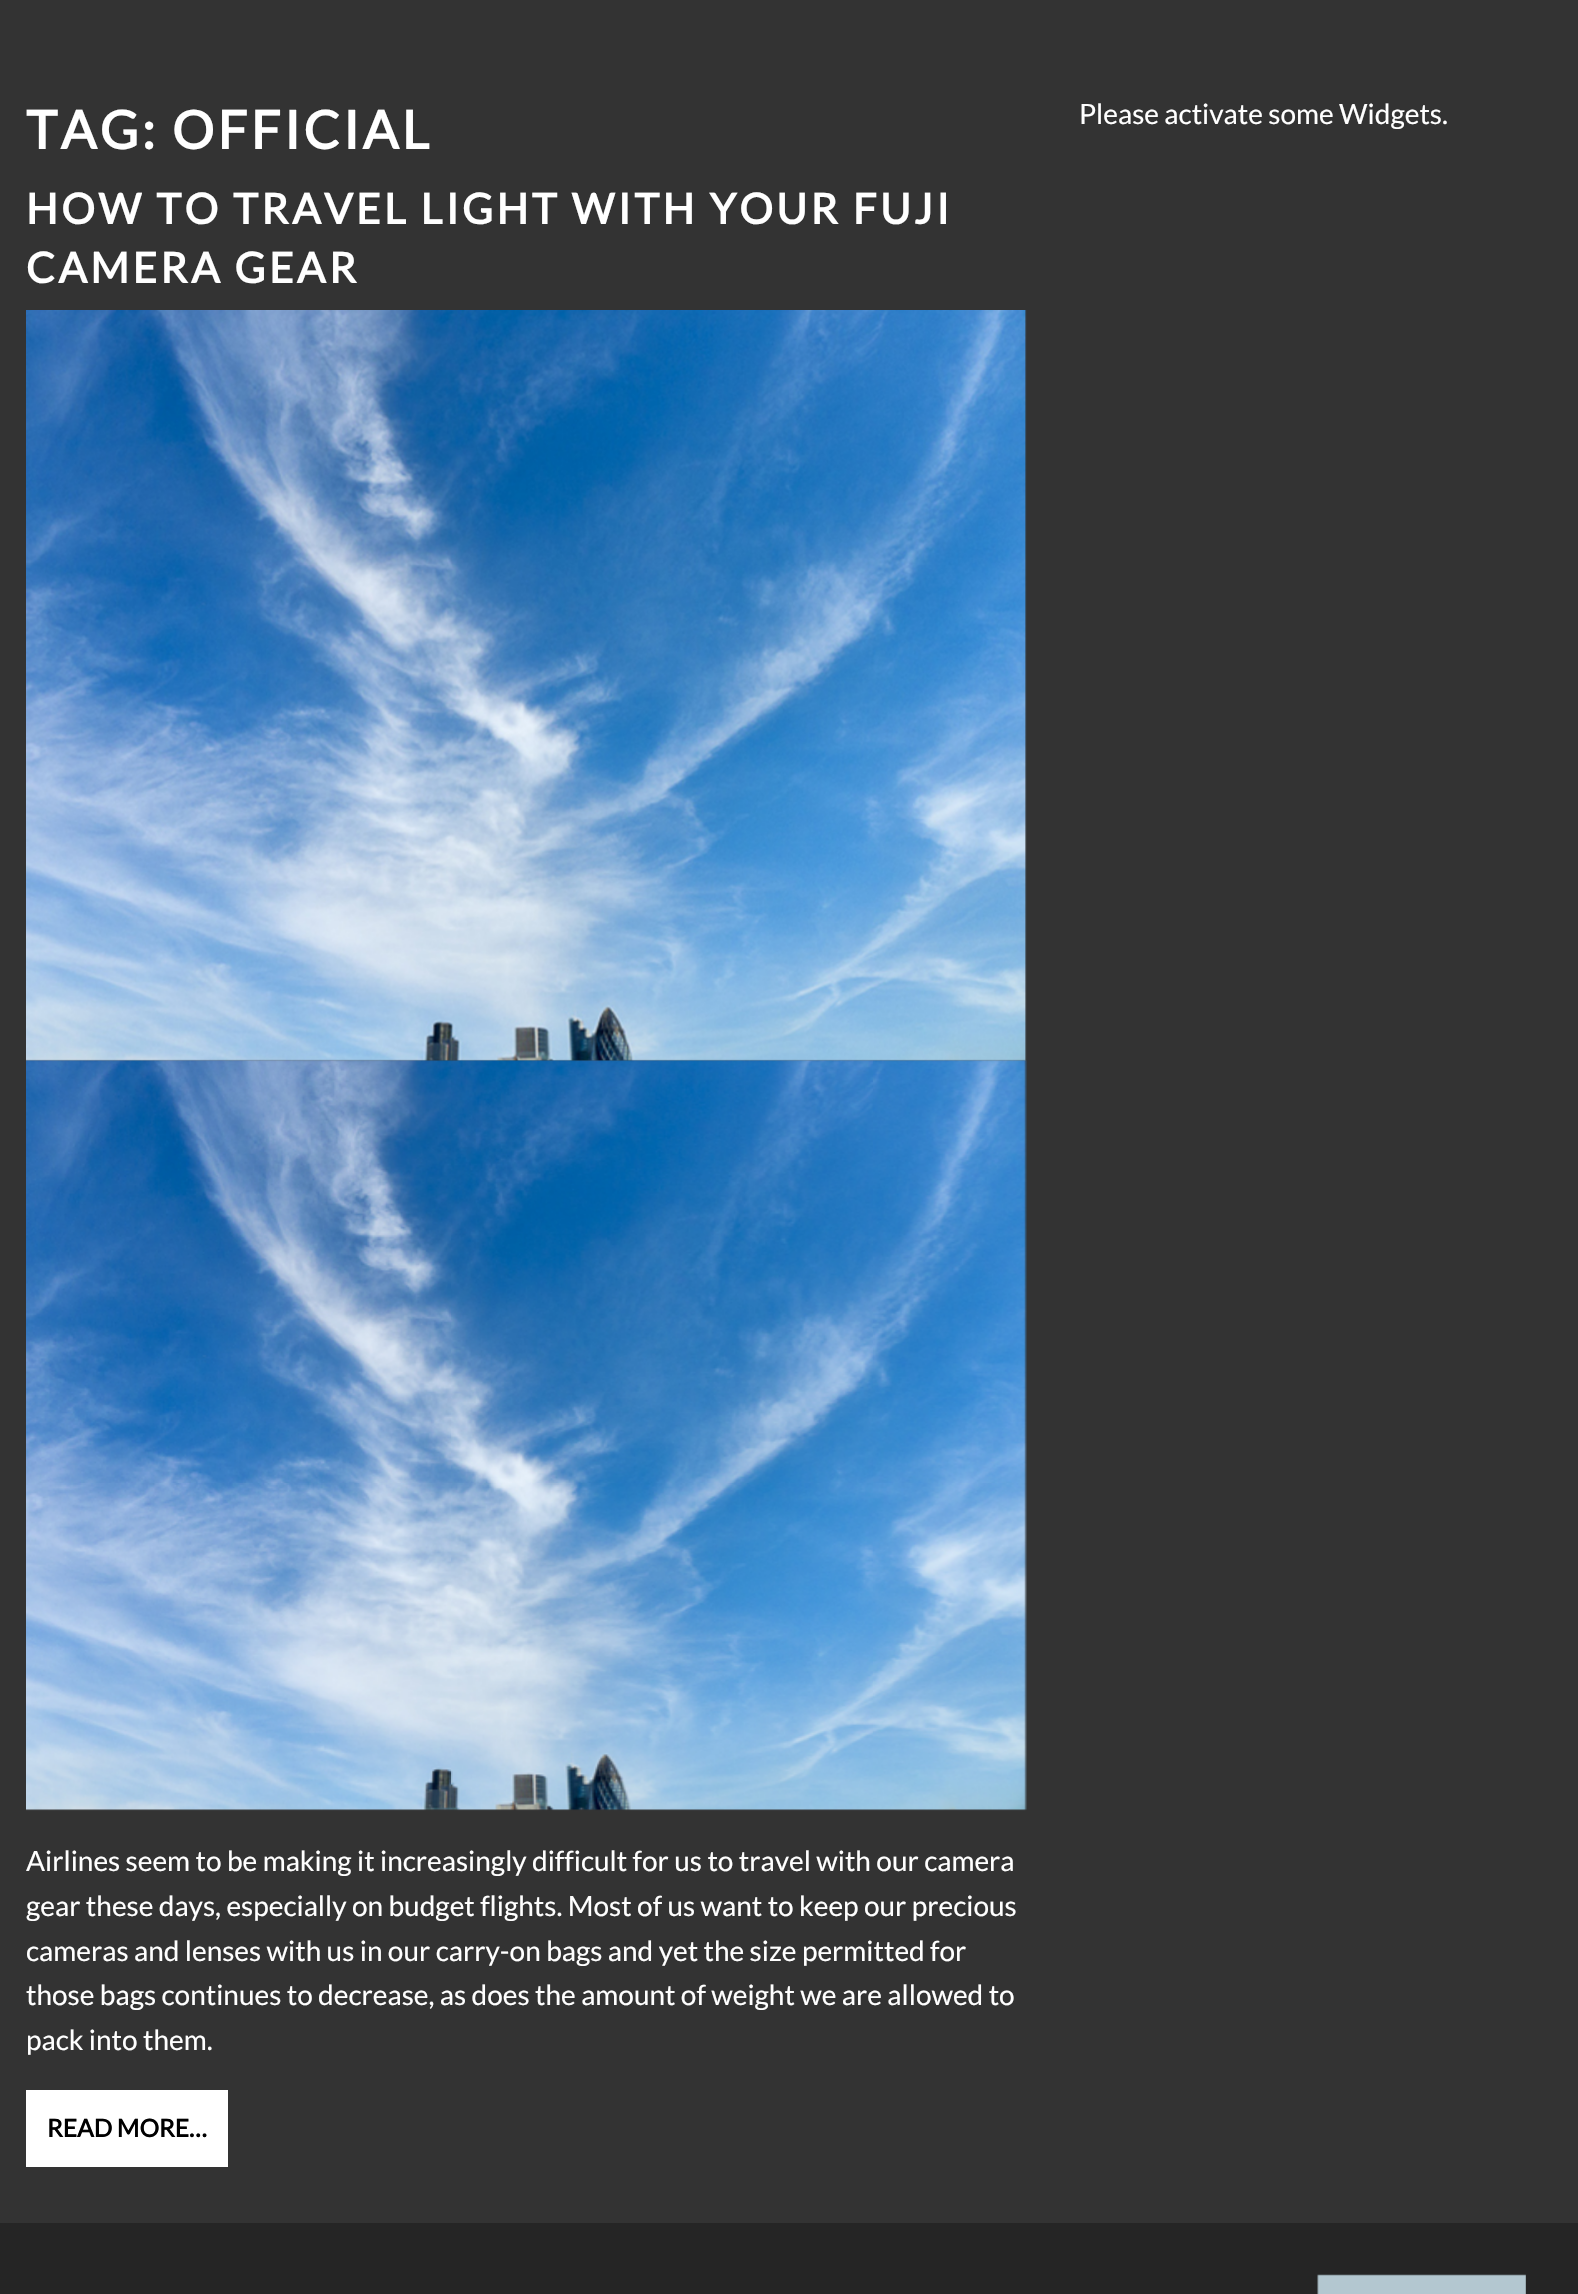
void draw(SkCanvas* c) {
SkPaint p;
p.setAntiAlias(true);
auto F=[&](const char* family, int weight, float size, bool italic = false){SkFontStyle style(weight, SkFontStyle::kNormal_Width,italic ? SkFontStyle::kItalic_Slant : SkFontStyle::kUpright_Slant);SkFont result(fontMgr->matchFamilyStyle(family, style), size);result.setSubpixel(true);return result;};
auto T=[&](const char* s, float x, float y, const SkFont& font){c->drawString(s, x, y, font, p);};
auto L=[&](const char* s, float x, float y, const SkFont& font, const SkPaint& ink, float letter, float word){std::vector<SkGlyphID> glyphs(font.countText(s, strlen(s), SkTextEncoding::kUTF8));std::vector<float> xs(glyphs.size());font.textToGlyphs(s, strlen(s), SkTextEncoding::kUTF8, glyphs);font.getXPos(glyphs, xs, x);float extra = 0;for (size_t i = 0; i < glyphs.size(); i++) {xs[i] += extra;extra += letter + word * (glyphs[i] == font.unicharToGlyph(' '));}c->drawTextBlob(SkTextBlob::MakeFromPosHGlyphs(glyphs, xs, y, font), 0, 0, ink);};
auto R=[&](float x, float y, float w, float h){c->drawRect(SkRect::MakeXYWH(x, y, w, h), p);};
auto I=[&](const char* path, float x, float y, float w, float h){auto image = SkImages::DeferredFromEncodedData(SkData::MakeFromFileName(path));c->drawImageRect(image, SkRect::MakeXYWH(x, y, w, h), SkSamplingOptions());};
c->clear(0xff333333);
auto f1 = F("Lato",700,52.5);
p.setColor(0xffffffff);
L("TAG: OFFICIAL",26,149,f1,p,3.5,0);
auto f2 = F("Lato",700,42);
L("HOW TO TRAVEL LIGHT WITH YOUR FUJI",26,224,f2,p,3.5,0);
L("CAMERA GEAR",26,283,f2,p,3.5,0);
I("1.png",26,310,1001,751);
I("2.png",26,1060,1001,751);
auto f3 = F("Lato",400,28);
T("Airlines seem to be making it increasingly difficult for us to travel with our camera",26,1871,f3);
T("gear these days, especially on budget flights. Most of us want to keep our precious",26,1916,f3);
T("cameras and lenses with us in our carry-on bags and yet the size permitted for",26,1961,f3);
T("those bags continues to decrease, as does the amount of weight we are allowed to",26,2005,f3);
T("pack into them.",26,2050,f3);
R(26,2090,202,77);
auto f4 = F("Lato",700,24.5);
p.setColor(0xff000000);
T("READ MORE…",47,2137,f4);
p.setColor(0xffffffff);
T("Please activate some Widgets.",1079,124,f3);
p.setColor(0xff252525);
R(0,2223,1578,71);
I("3.png",1317,2274,209,20);
}
